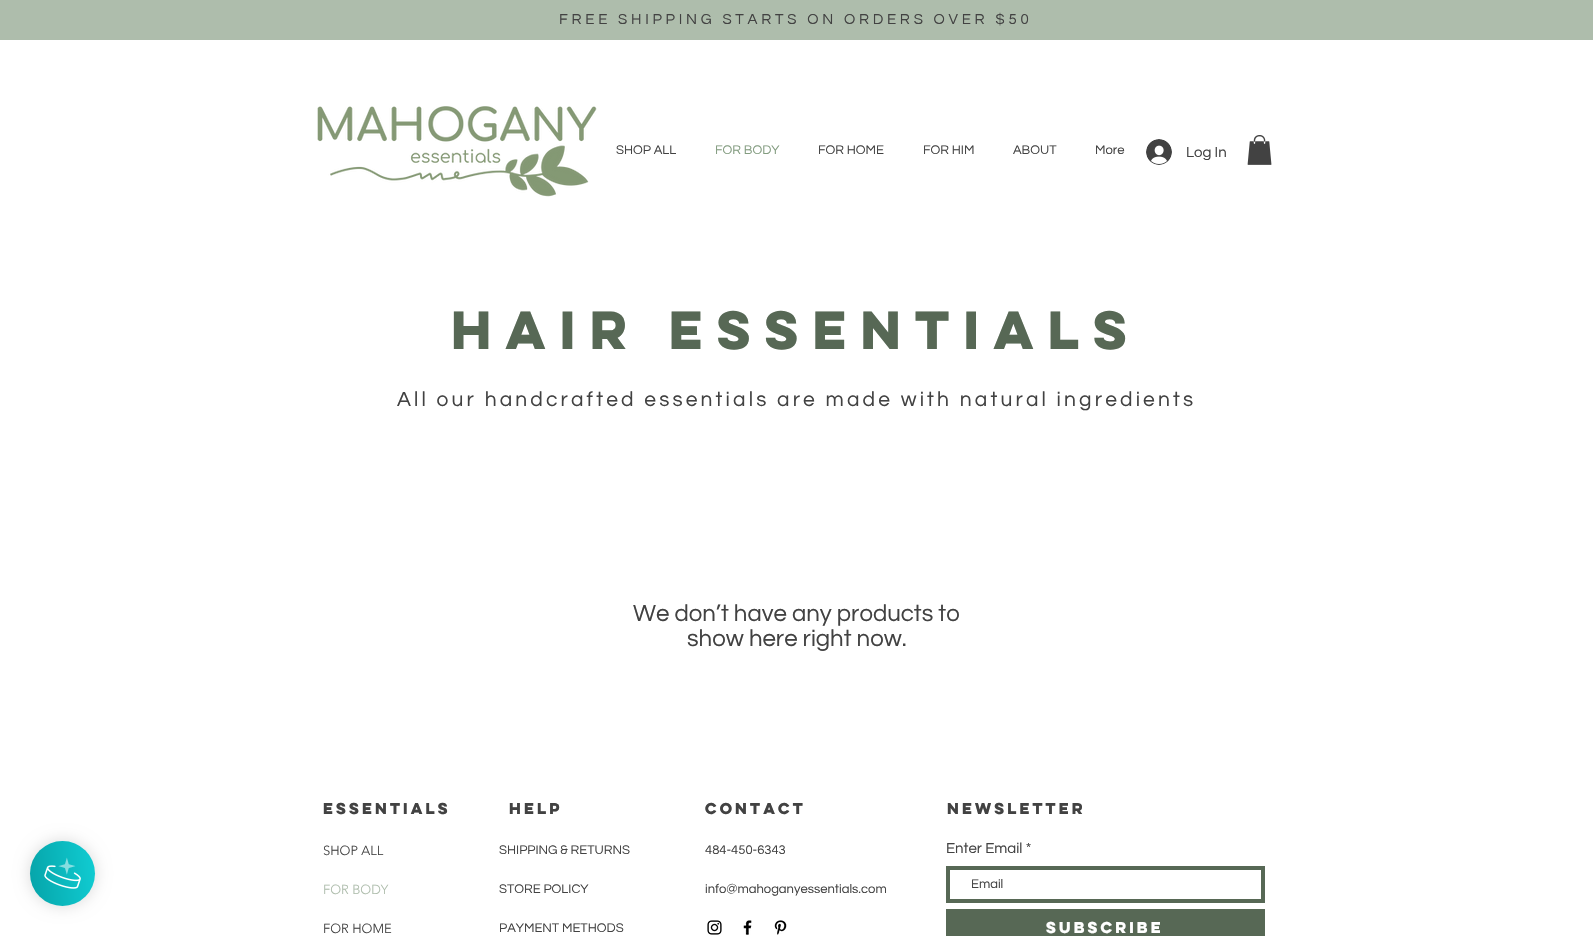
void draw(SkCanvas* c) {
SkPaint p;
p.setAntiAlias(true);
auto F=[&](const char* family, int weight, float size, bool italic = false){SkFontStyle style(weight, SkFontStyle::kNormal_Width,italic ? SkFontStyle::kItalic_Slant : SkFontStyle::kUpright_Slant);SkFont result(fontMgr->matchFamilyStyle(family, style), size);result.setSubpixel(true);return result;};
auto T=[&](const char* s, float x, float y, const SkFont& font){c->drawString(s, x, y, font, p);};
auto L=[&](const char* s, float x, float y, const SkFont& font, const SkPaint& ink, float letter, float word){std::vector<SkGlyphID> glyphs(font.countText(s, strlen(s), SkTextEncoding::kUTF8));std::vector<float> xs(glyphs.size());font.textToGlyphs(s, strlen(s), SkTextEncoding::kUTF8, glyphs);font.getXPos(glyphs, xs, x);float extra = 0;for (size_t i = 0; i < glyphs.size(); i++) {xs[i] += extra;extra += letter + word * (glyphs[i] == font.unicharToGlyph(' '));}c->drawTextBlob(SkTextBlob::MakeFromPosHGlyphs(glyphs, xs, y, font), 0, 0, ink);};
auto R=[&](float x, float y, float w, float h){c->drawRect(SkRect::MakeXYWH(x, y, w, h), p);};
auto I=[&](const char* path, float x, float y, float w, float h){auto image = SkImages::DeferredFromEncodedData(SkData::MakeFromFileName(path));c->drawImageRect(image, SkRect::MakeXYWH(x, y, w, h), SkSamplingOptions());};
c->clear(0xffffffff);
p.setColor(0x26000000);
p.setMaskFilter(SkMaskFilter::MakeBlur(kNormal_SkBlurStyle, 8));
c->drawRoundRect(SkRect::MakeXYWH(30,841,65,65),32.5,32.5,p);
p.setMaskFilter(nullptr);
{
const SkColor colors[] = {0xff10cbd1,0xff06a5aa};
const float stops[] = {.05,.97};
const SkPoint ends[] = {{98,870}, {27,877}};
p.setShader(SkGradientShader::MakeLinear(ends, colors, stops, 2, SkTileMode::kClamp));
p.setAlpha(255);
}
c->drawCircle(62.5,873.5,32.5,p);
I("1.png",44,857,37,32);
p.setShader(nullptr);
p.setColor(0xffaebdac);
R(0,0,1593,40);
auto f1 = F("Questrial",400,15);
p.setColor(0xff424242);
L("FREE SHIPPING STARTS ON ORDERS OVER $50",559,24,f1,p,3.75,0);
I("2.png",317,106,280,91);
auto f2 = F("Questrial",400,13);
T("SHOP ALL",616,154,f2);
p.setColor(0xff839c80);
T("FOR BODY",715,154,f2);
p.setColor(0xff424242);
T("FOR HOME",818,154,f2);
T("FOR HIM",923,154,f2);
T("ABOUT",1013,154,f2);
T("More",1095,154,f2);
I("3.png",1146,139,26,26);
T("Log In",1186,157,f1);
I("4.png",1247,135,25,30);
auto f3 = F("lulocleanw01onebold",700,48);
p.setColor(0xff576855);
L("HAIR essentials",451,349,f3,p,3.4,0);
auto f4 = F("Questrial",400,21);
p.setColor(0xff424242);
L("All our handcrafted essentials are made with natural ingredients",397,406,f4,p,3.15,0);
auto f5 = F("Questrial",400,24);
T("We don’t have any products to",633,621,f5);
T("show here right now.",687,646,f5);
auto f6 = F("lulocleanw01onebold",700,14);
T("ESSENTIALS",323,814,f6);
T("HELP",509,814,f6);
T("CONTACT",705,814,f6);
T("Newsletter",947,814,f6);
auto f7 = F("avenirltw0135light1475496",300,13);
T("SHOP ALL",323,855,f7);
p.setColor(0xffaebdac);
T("FOR BODY",323,894,f7);
p.setColor(0xff424242);
T("FOR HOME",323,933,f7);
T("SHIPPING & RETURNS",499,854,f2);
T("STORE POLICY",499,893,f2);
T("PAYMENT METHODS",499,932,f2);
T("484-450-6343",705,854,f2);
T("info@mahoganyessentials.com",705,893,f2);
T("Enter Email *",946,853,f1);
p.setStroke(true);
p.setStrokeWidth(4);
p.setColor(0xff576855);
c->drawRect(SkRect::MakeXYWH(948,868,315,33),p);
p.setStroke(false);
p.setColor(0xff424242);
T("Email",971,888,f2);
p.setColor(0xff576855);
R(946,909,319,27);
p.setColor(0xffffffff);
T("SUBSCRIBE",1046,933,f6);
I("5.png",707,920,15,15);
I("6.png",743,920,9,15);
I("7.png",774,920,13,15);
}
